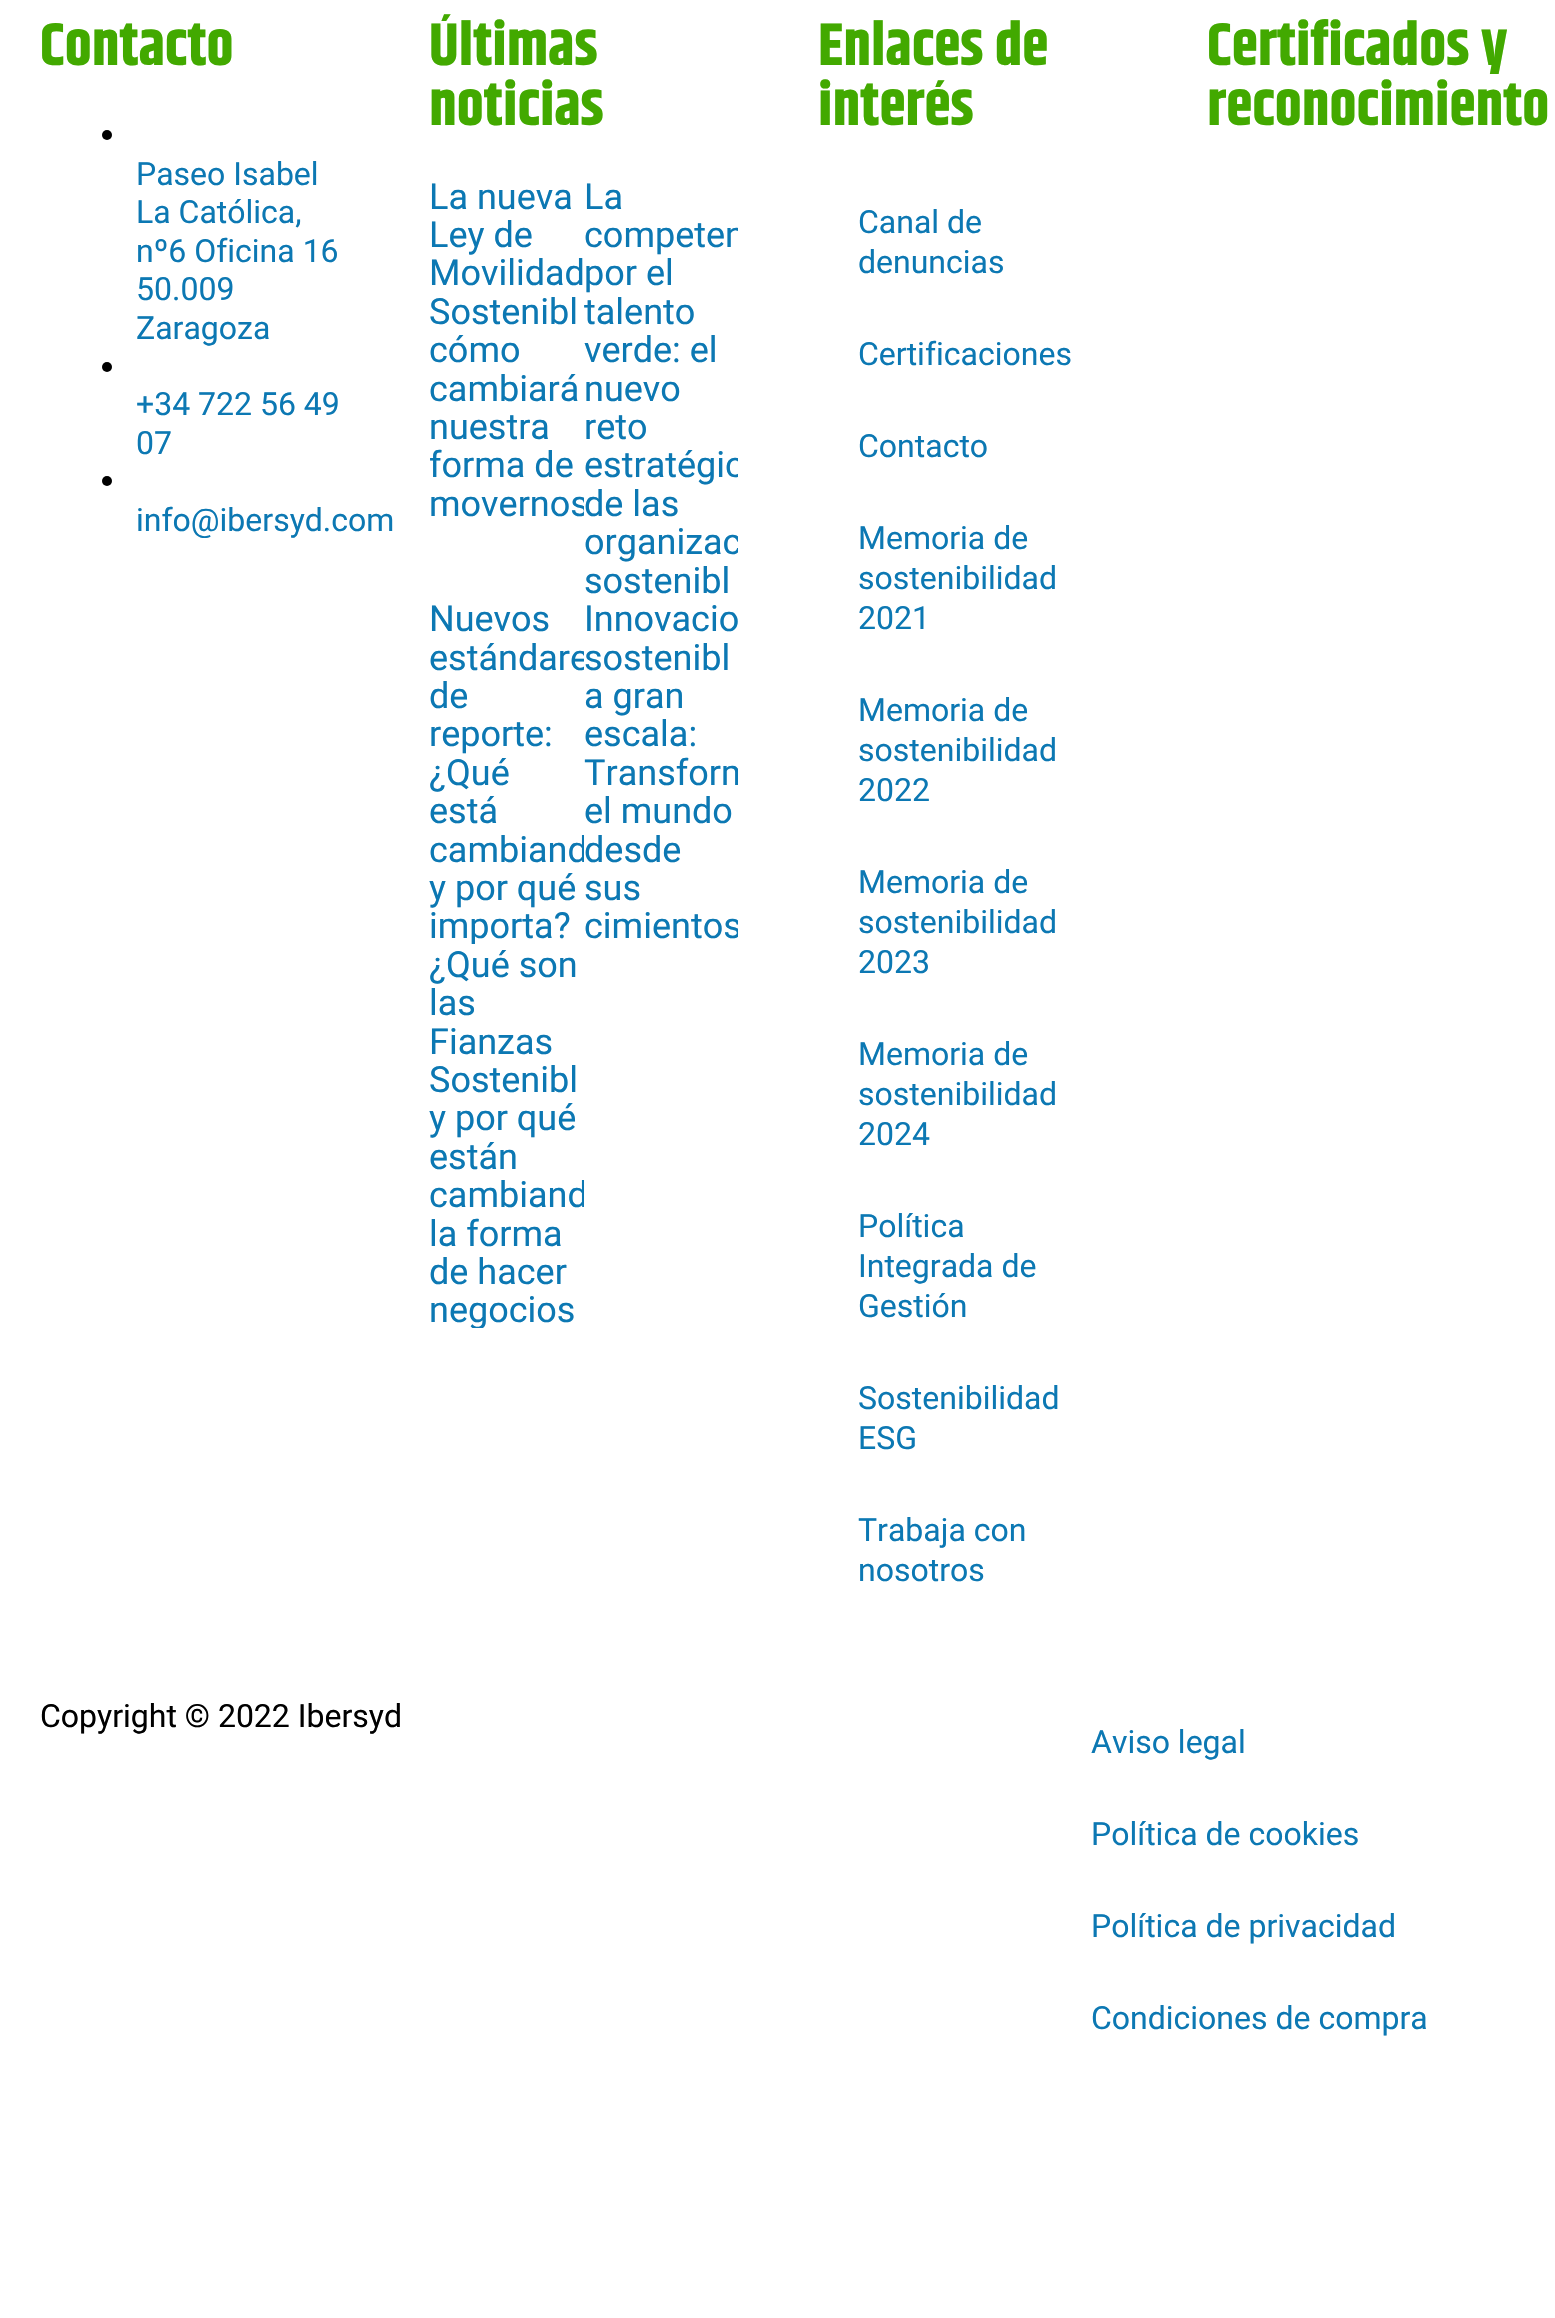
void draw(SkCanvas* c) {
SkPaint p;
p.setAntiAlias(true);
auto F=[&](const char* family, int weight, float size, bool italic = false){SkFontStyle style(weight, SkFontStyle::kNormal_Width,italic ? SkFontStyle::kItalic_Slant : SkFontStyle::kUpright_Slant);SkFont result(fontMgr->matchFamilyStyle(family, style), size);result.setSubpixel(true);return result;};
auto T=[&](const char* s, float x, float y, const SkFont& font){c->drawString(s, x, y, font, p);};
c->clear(0xffffffff);
auto f1 = F("Khand",700,60);
p.setColor(0xff42a900);
T("Contacto",40,65,f1);
p.setColor(0xff000000);
c->drawCircle(107,135,5,p);
auto f2 = F("Roboto",400,32);
p.setColor(0xff0c78b3);
T("Paseo Isabel",136,185,f2);
T("La Católica,",136,223,f2);
T("nº6 Oficina 16",136,262,f2);
T("50.009",136,300,f2);
T("Zaragoza",136,339,f2);
p.setColor(0xff000000);
c->drawCircle(107,367,5,p);
p.setColor(0xff0c78b3);
T("+34 722 56 49",136,415,f2);
T("07",136,454,f2);
p.setColor(0xff000000);
c->drawCircle(107,481,5,p);
p.setColor(0xff0c78b3);
T("info@ibersyd.com",136,531,f2);
p.setColor(0xff42a900);
T("Últimas",429,65,f1);
T("noticias",429,125,f1);
auto f3 = F("Roboto",400,36);
p.setColor(0xff0c78b3);
T("La nueva",429,209,f3);
T("Ley de",429,247,f3);
T("Movilidad",429,285,f3);
T("Sostenibl",429,324,f3);
T("cómo",429,362,f3);
T("cambiará",429,401,f3);
T("nuestra",429,439,f3);
T("forma de",429,477,f3);
c->save();
c->clipRect(SkRect::MakeXYWH(430,176,154,424));
T("movernos",429,516,f3);
c->restore();
T("La",584,209,f3);
c->save();
c->clipRect(SkRect::MakeXYWH(584,176,154,424));
T("competen",584,247,f3);
c->restore();
T("por el",584,285,f3);
c->save();
c->clipRect(SkRect::MakeXYWH(584,176,154,424));
T("talento",584,324,f3);
c->restore();
T("verde: el",584,362,f3);
T("nuevo",584,401,f3);
T("reto",584,439,f3);
c->save();
c->clipRect(SkRect::MakeXYWH(584,176,154,424));
T("estratégic",584,477,f3);
c->restore();
T("de las",584,516,f3);
c->save();
c->clipRect(SkRect::MakeXYWH(584,176,154,424));
T("organizac",584,554,f3);
c->restore();
T("sostenibl",584,593,f3);
T("Nuevos",429,631,f3);
c->save();
c->clipRect(SkRect::MakeXYWH(430,600,154,344));
T("estándare",429,670,f3);
c->restore();
T("de",429,708,f3);
T("reporte:",429,746,f3);
T("¿Qué",429,785,f3);
T("está",429,823,f3);
c->save();
c->clipRect(SkRect::MakeXYWH(430,600,154,344));
T("cambiand",429,862,f3);
c->restore();
T("y por qué",429,900,f3);
c->save();
c->clipRect(SkRect::MakeXYWH(430,600,154,344));
T("importa?",429,938,f3);
c->restore();
T("Innovacio",584,631,f3);
T("sostenibl",584,670,f3);
T("a gran",584,708,f3);
T("escala:",584,746,f3);
c->save();
c->clipRect(SkRect::MakeXYWH(584,600,154,344));
T("Transform",584,785,f3);
c->restore();
T("el mundo",584,823,f3);
T("desde",584,862,f3);
T("sus",584,900,f3);
c->save();
c->clipRect(SkRect::MakeXYWH(584,600,154,344));
T("cimientos",584,938,f3);
c->restore();
T("¿Qué son",429,977,f3);
T("las",429,1015,f3);
T("Fianzas",429,1054,f3);
T("Sostenibl",429,1092,f3);
T("y por qué",429,1130,f3);
T("están",429,1169,f3);
c->save();
c->clipRect(SkRect::MakeXYWH(430,944,154,384));
T("cambiand",429,1207,f3);
c->restore();
T("la forma",429,1246,f3);
T("de hacer",429,1284,f3);
c->save();
c->clipRect(SkRect::MakeXYWH(430,944,154,384));
T("negocios",429,1322,f3);
c->restore();
p.setColor(0xff42a900);
T("Enlaces de",818,65,f1);
T("interés",818,125,f1);
p.setColor(0xff0c78b3);
T("Canal de",858,233,f2);
T("denuncias",858,273,f2);
T("Certificaciones",858,365,f2);
T("Contacto",858,457,f2);
T("Memoria de",858,549,f2);
T("sostenibilidad",858,589,f2);
T("2021",858,629,f2);
T("Memoria de",858,721,f2);
T("sostenibilidad",858,761,f2);
T("2022",858,801,f2);
T("Memoria de",858,893,f2);
T("sostenibilidad",858,933,f2);
T("2023",858,973,f2);
T("Memoria de",858,1065,f2);
T("sostenibilidad",858,1105,f2);
T("2024",858,1145,f2);
T("Política",858,1237,f2);
T("Integrada de",858,1277,f2);
T("Gestión",858,1317,f2);
T("Sostenibilidad",858,1409,f2);
T("ESG",858,1449,f2);
T("Trabaja con",858,1541,f2);
T("nosotros",858,1581,f2);
p.setColor(0xff42a900);
T("Certificados y",1207,65,f1);
T("reconocimiento",1207,125,f1);
p.setColor(0xff000000);
T("Copyright © 2022 Ibersyd",40,1727,f2);
p.setColor(0xff0c78b3);
T("Aviso legal",1091,1753,f2);
T("Política de cookies",1091,1845,f2);
T("Política de privacidad",1091,1937,f2);
T("Condiciones de compra",1091,2029,f2);
}
